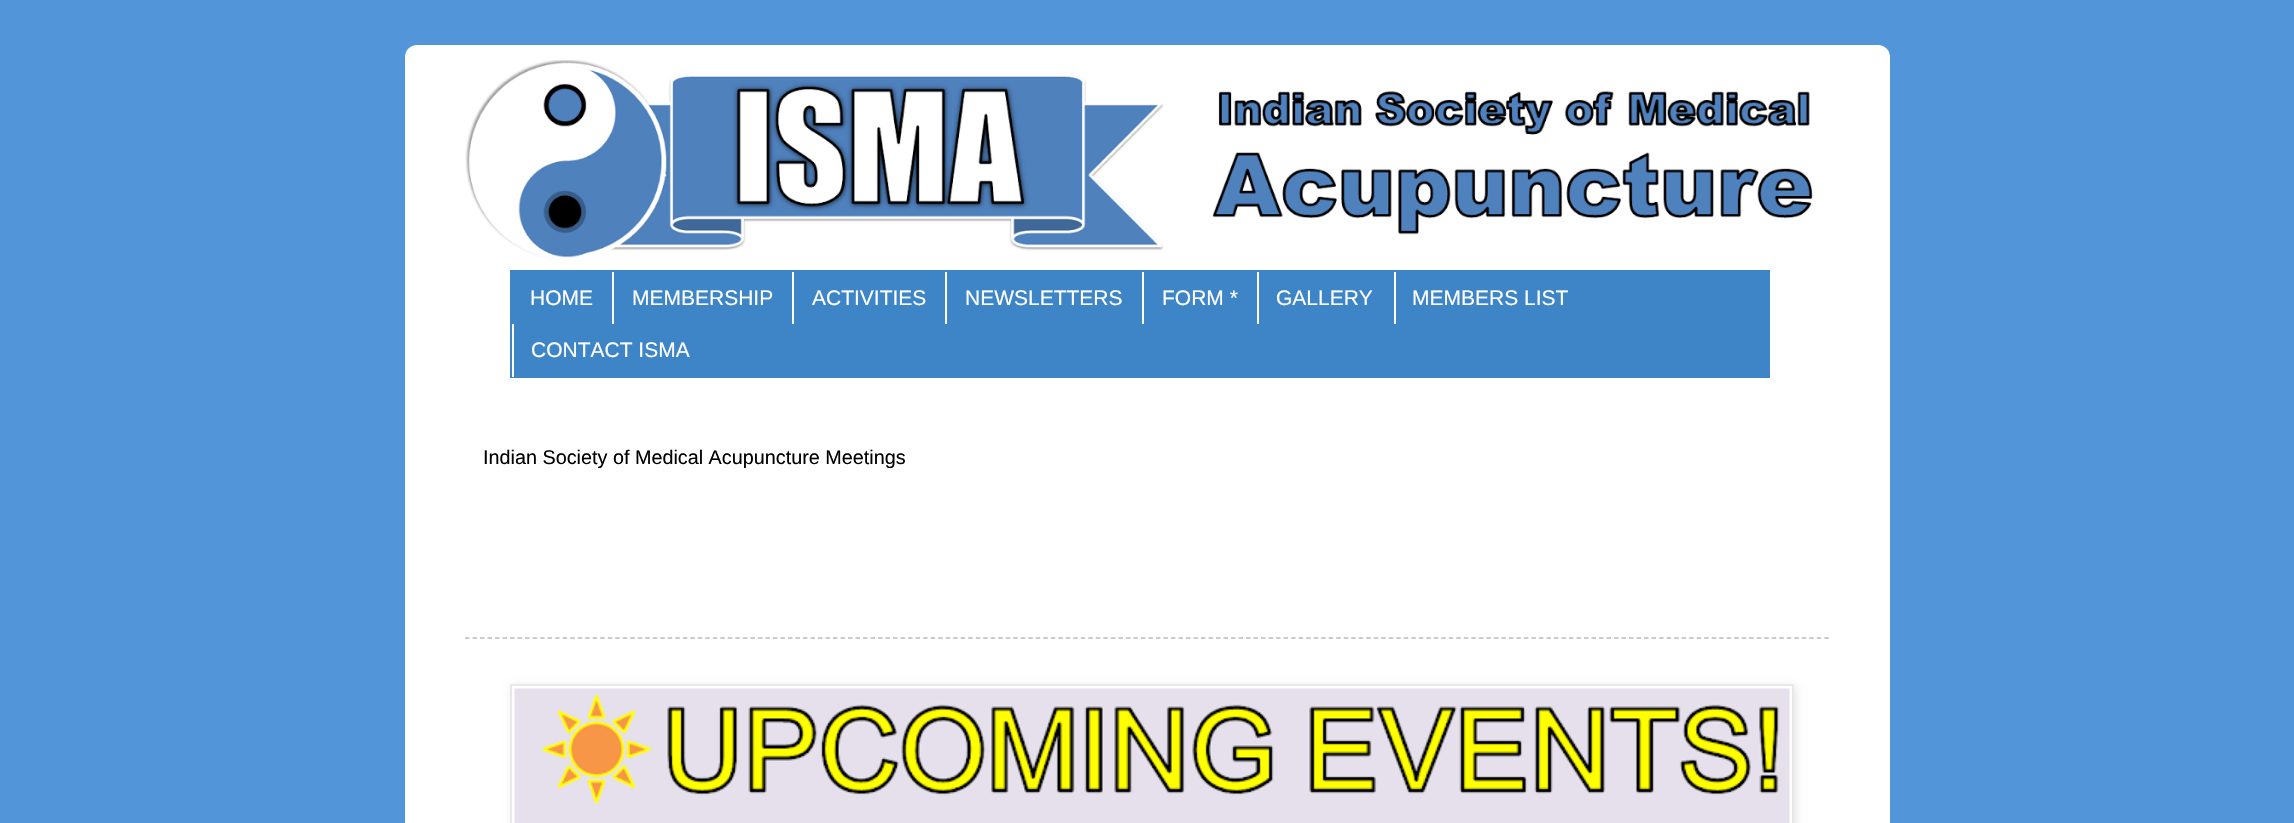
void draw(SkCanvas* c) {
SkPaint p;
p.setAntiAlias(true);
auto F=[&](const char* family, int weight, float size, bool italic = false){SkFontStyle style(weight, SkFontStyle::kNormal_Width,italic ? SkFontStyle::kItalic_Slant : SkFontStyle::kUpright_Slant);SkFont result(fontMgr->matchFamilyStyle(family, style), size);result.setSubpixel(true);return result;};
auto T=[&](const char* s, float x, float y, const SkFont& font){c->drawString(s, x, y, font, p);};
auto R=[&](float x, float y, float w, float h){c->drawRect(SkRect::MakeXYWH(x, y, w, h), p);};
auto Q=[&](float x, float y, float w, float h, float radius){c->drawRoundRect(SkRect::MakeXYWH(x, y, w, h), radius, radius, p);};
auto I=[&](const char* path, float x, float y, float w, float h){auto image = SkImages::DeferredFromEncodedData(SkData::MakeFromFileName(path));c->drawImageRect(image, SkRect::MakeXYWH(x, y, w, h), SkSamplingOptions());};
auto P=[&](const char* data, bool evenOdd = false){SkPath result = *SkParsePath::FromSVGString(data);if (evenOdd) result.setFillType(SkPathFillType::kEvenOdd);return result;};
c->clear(0xff5295d8);
p.setColor(0xffffffff);
Q(405,45,1485,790,12);
I("1.png",465,60,1348,199);
p.setColor(0xff3d85c6);
R(510,270,1260,108);
auto f1 = F("Liberation Sans",400,21);
p.setColor(0xffffffff);
T("HOME",530,305,f1);
R(612,272,2,52);
T("MEMBERSHIP",632,305,f1);
R(792,272,2,52);
T("ACTIVITIES",812,305,f1);
R(945,272,2,52);
T("NEWSLETTERS",965,305,f1);
R(1142,272,2,52);
T("FORM *",1162,305,f1);
R(1257,272,2,52);
T("GALLERY",1276,305,f1);
R(1394,272,2,52);
T("MEMBERS LIST",1412,305,f1);
R(512,324,2,53);
T("CONTACT ISMA",531,357,f1);
auto f2 = F("Liberation Sans",400,19.8);
p.setColor(0xff000000);
T("Indian Society of Medical Acupuncture Meetings",483,464,f2);
p.setStroke(true);
p.setStrokeWidth(1.5);
p.setColor(0xffbbbbbb);
p.setPathEffect(SkDashPathEffect::Make({{4.5f,3.01f}}, 0));
c->drawPath(P("M465 638h1365"),p);
p.setPathEffect(nullptr);
c->save();
c->clipPath(P("M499 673h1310v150h-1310zm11 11h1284v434h-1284z",true),true);
p.setStroke(false);
p.setColor(0x1a000000);
p.setMaskFilter(SkMaskFilter::MakeBlur(kNormal_SkBlurStyle, 4));
c->drawRect(SkRect::MakeXYWH(512,686,1284,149),p);
p.setMaskFilter(nullptr);
c->restore();
p.setStroke(true);
p.setStrokeWidth(2);
p.setColor(0xffe8e8e8);
c->drawRect(SkRect::MakeXYWH(511,685,1282,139),p);
I("2.png",514,688,1276,135);
}
